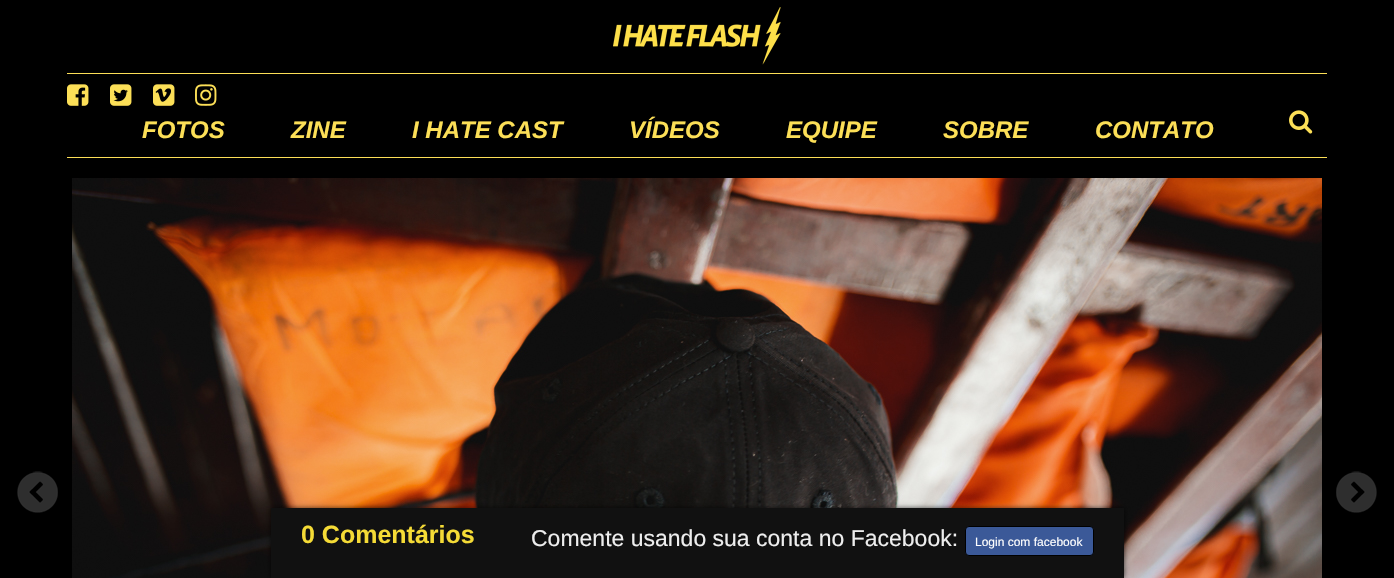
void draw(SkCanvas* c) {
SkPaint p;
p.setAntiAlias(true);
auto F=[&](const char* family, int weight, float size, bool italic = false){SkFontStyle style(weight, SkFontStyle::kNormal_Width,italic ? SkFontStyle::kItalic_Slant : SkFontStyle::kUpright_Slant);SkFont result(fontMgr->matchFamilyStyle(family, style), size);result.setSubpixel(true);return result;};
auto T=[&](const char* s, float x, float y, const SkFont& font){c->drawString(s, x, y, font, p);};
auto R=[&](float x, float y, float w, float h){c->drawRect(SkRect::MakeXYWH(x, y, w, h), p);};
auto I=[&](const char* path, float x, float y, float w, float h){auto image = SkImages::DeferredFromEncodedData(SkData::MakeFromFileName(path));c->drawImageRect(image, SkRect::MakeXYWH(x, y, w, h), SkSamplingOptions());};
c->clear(0xff000000);
p.setColor(0xfffcdf57);
R(67,73,1260,1);
I("1.png",613,7,168,58);
R(67,157,1260,1);
I("2.png",67,84,22,22);
I("3.png",110,84,22,22);
I("4.png",153,84,22,22);
I("5.png",195,84,22,22);
auto f1 = F("Liberation Sans",700,24,true);
T("FOTOS",142,138,f1);
T("ZINE",291,138,f1);
T("I HATE CAST",412,138,f1);
T("VÍDEOS",629,138,f1);
T("EQUIPE",786,138,f1);
T("SOBRE",943,138,f1);
T("CONTATO",1095,138,f1);
I("6.png",1289,110,24,24);
I("7.png",17,471,41,42);
I("8.png",72,178,1250,400);
I("9.png",1336,471,41,42);
p.setColor(0xb3000000);
p.setMaskFilter(SkMaskFilter::MakeBlur(kNormal_SkBlurStyle, 2.5));
c->drawRect(SkRect::MakeXYWH(271,508,853,70),p);
p.setMaskFilter(nullptr);
p.setColor(0xff111111);
R(271,508,853,70);
auto f2 = F("Liberation Sans",700,25);
p.setColor(0xfff5db36);
T("0 Comentários",301,543,f2);
auto f3 = F("Liberation Sans",400,23);
p.setColor(0xffeeeeee);
T("Comente usando sua conta no Facebook:",531,546,f3);
p.setColor(0xff3b5998);
c->drawRoundRect(SkRect::MakeXYWH(965.5,526.5,128,29),3.5,3.5,p);
p.setStroke(true);
p.setStrokeWidth(1);
p.setColor(0xff000000);
c->drawRoundRect(SkRect::MakeXYWH(965.5,526.5,128,29),3.5,3.5,p);
auto f4 = F("Liberation Sans",400,12);
p.setStroke(false);
p.setColor(0xffffffff);
T("Login com facebook",975,546,f4);
}
